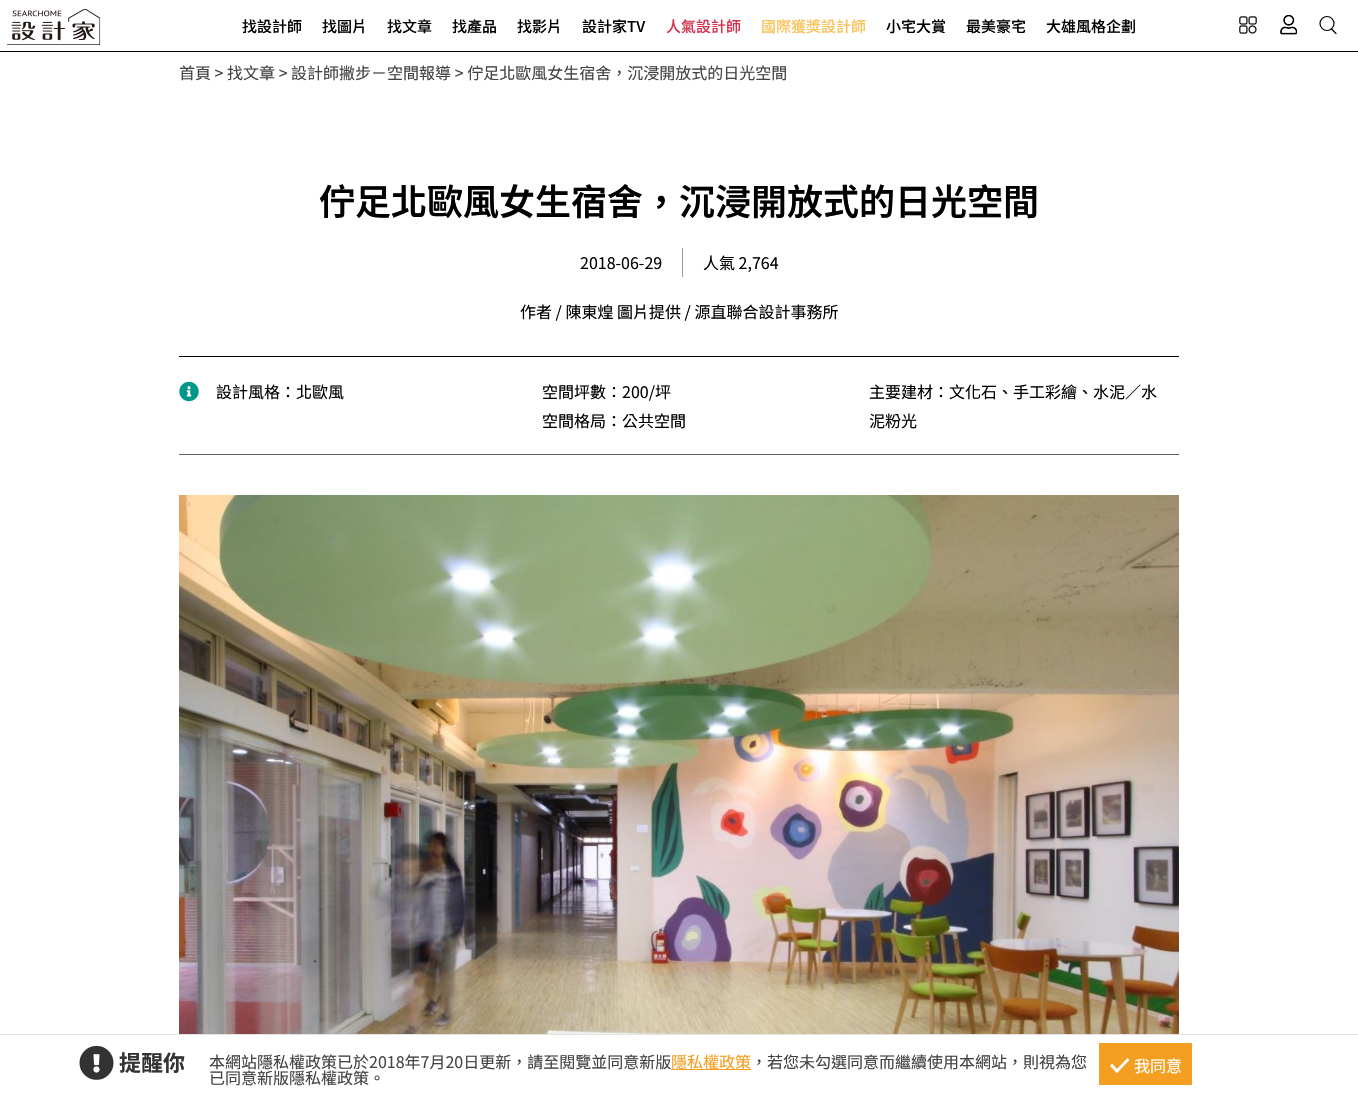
void draw(SkCanvas* c) {
SkPaint p;
p.setAntiAlias(true);
auto F=[&](const char* family, int weight, float size, bool italic = false){SkFontStyle style(weight, SkFontStyle::kNormal_Width,italic ? SkFontStyle::kItalic_Slant : SkFontStyle::kUpright_Slant);SkFont result(fontMgr->matchFamilyStyle(family, style), size);result.setSubpixel(true);return result;};
auto T=[&](const char* s, float x, float y, const SkFont& font){c->drawString(s, x, y, font, p);};
auto R=[&](float x, float y, float w, float h){c->drawRect(SkRect::MakeXYWH(x, y, w, h), p);};
auto I=[&](const char* path, float x, float y, float w, float h){auto image = SkImages::DeferredFromEncodedData(SkData::MakeFromFileName(path));c->drawImageRect(image, SkRect::MakeXYWH(x, y, w, h), SkSamplingOptions());};
auto P=[&](const char* data, bool evenOdd = false){SkPath result = *SkParsePath::FromSVGString(data);if (evenOdd) result.setFillType(SkPathFillType::kEvenOdd);return result;};
c->clear(0xffffffff);
p.setColor(0xff000000);
R(0,51,1358,1);
I("1.png",6,9,95,36);
auto f1 = F("Noto Sans TC",500,15);
T("找設計師",242,32,f1);
T("找圖片",322,32,f1);
T("找文章",387,32,f1);
T("找產品",452,32,f1);
T("找影片",517,32,f1);
T("設計家TV",582,32,f1);
p.setColor(0xffd3304d);
T("人氣設計師",666,32,f1);
p.setColor(0xfff9c45c);
T("國際獲獎設計師",761,32,f1);
p.setColor(0xff000000);
T("小宅大賞",886,32,f1);
T("最美豪宅",966,32,f1);
T("大雄風格企劃",1046,32,f1);
I("2.png",1239,16,18,18);
I("3.png",1280,15,17,20);
p.setStroke(true);
p.setStrokeWidth(1.2);
c->drawCircle(1327,23.5,7,p);
p.setStrokeCap(SkPaint::kRound_Cap);
c->drawPath(P("M1331.5 29l4.5 4.5"),p);
auto f2 = F("Noto Sans TC",400,16);
p.setStroke(false);
p.setColor(0xff434343);
T("首頁 > 找文章 > 設計師撇步－空間報導 > 佇足北歐風女生宿舍，沉浸開放式的日光空間",179,79,f2);
auto f3 = F("Noto Sans TC",600,36);
p.setColor(0xff000000);
T("佇足北歐風女生宿舍，沉浸開放式的日光空間",319,215,f3);
p.setColor(0xff999999);
R(682,248,1,29);
p.setColor(0xff000000);
T("2018-06-29",580,269,f2);
T("人氣 2,764",703,269,f2);
T("作者 / 陳東煌 圖片提供 / 源直聯合設計事務所",520,318,f2);
R(179,356,1000,1);
p.setColor(0xff626262);
R(179,454,1000,1);
I("4.png",179,381,20,21);
p.setColor(0xff000000);
T("設計風格：北歐風",216,398,f2);
T("空間坪數：200/坪",542,398,f2);
T("空間格局：公共空間",542,427,f2);
T("主要建材：文化石、手工彩繪、水泥／水",869,398,f2);
T("泥粉光",869,427,f2);
I("5.png",179,495,1000,539);
p.setStroke(true);
p.setStrokeWidth(1);
p.setStrokeCap(SkPaint::kButt_Cap);
p.setColor(0xffe4e4e4);
c->drawRect(SkRect::MakeXYWH(-.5,1034.5,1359,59),p);
I("6.png",79,1045,35,35);
auto f4 = F("Noto Sans TC",700,22);
p.setStroke(false);
p.setColor(0xff333333);
T("提醒你",119,1071,f4);
p.setColor(0xff434343);
T("本網站隱私權政策已於2018年7月20日更新，請至閱覽並同意新版",209,1068,f2);
p.setColor(0xfff49e22);
R(671,1069,80,1);
T("隱私權政策",671,1068,f2);
p.setColor(0xff434343);
T("，若您未勾選同意而繼續使用本網站，則視為您",751,1068,f2);
T("已同意新版隱私權政策。",209,1084,f2);
p.setColor(0xfff49e22);
R(1099,1043,93,42);
p.setColor(0xffffffff);
c->drawPath(P("M1127.5 1058l2 2l-12.5 13l-2-2z"),p);
c->drawPath(P("M1112 1063.5l7 7.5l-2 2l-7-7z"),p);
T("我同意",1134,1072,f2);
}
